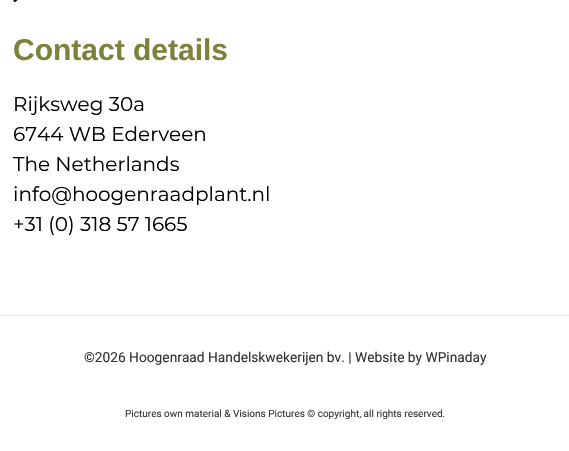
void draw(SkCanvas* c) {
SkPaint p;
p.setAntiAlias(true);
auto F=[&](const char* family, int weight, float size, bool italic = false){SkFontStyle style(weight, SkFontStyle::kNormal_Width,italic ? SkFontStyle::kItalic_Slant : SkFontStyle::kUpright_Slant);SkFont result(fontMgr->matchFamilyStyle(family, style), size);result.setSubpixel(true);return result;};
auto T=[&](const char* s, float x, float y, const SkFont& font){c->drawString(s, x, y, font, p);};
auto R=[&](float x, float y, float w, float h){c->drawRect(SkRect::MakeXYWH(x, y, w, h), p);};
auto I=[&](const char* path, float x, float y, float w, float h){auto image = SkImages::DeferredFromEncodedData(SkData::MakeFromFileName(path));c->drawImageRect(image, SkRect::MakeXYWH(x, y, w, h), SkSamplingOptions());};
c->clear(0xffffffff);
I("1.png",13,0,5,3);
auto f1 = F("Liberation Sans",700,30);
p.setColor(0xff7d813a);
T("Contact details",13,60,f1);
auto f2 = F("Montserrat",400,20);
p.setColor(0xff000000);
T("Rijksweg 30a",13,111,f2);
T("6744 WB Ederveen",13,141,f2);
T("The Netherlands",13,171,f2);
T("info@hoogenraadplant.nl",13,201,f2);
T("+31 (0) 318 57 1665",13,231,f2);
p.setColor(0xffe4e4e4);
R(0,315,569,1);
auto f3 = F("Roboto",400,13.75);
p.setColor(0xff333333);
T("©2026 Hoogenraad Handelskwekerijen bv. | Website by WPinaday",84,362,f3);
auto f4 = F("Roboto",400,10);
T("Pictures own material & Visions Pictures © copyright, all rights reserved.",125,417,f4);
}
